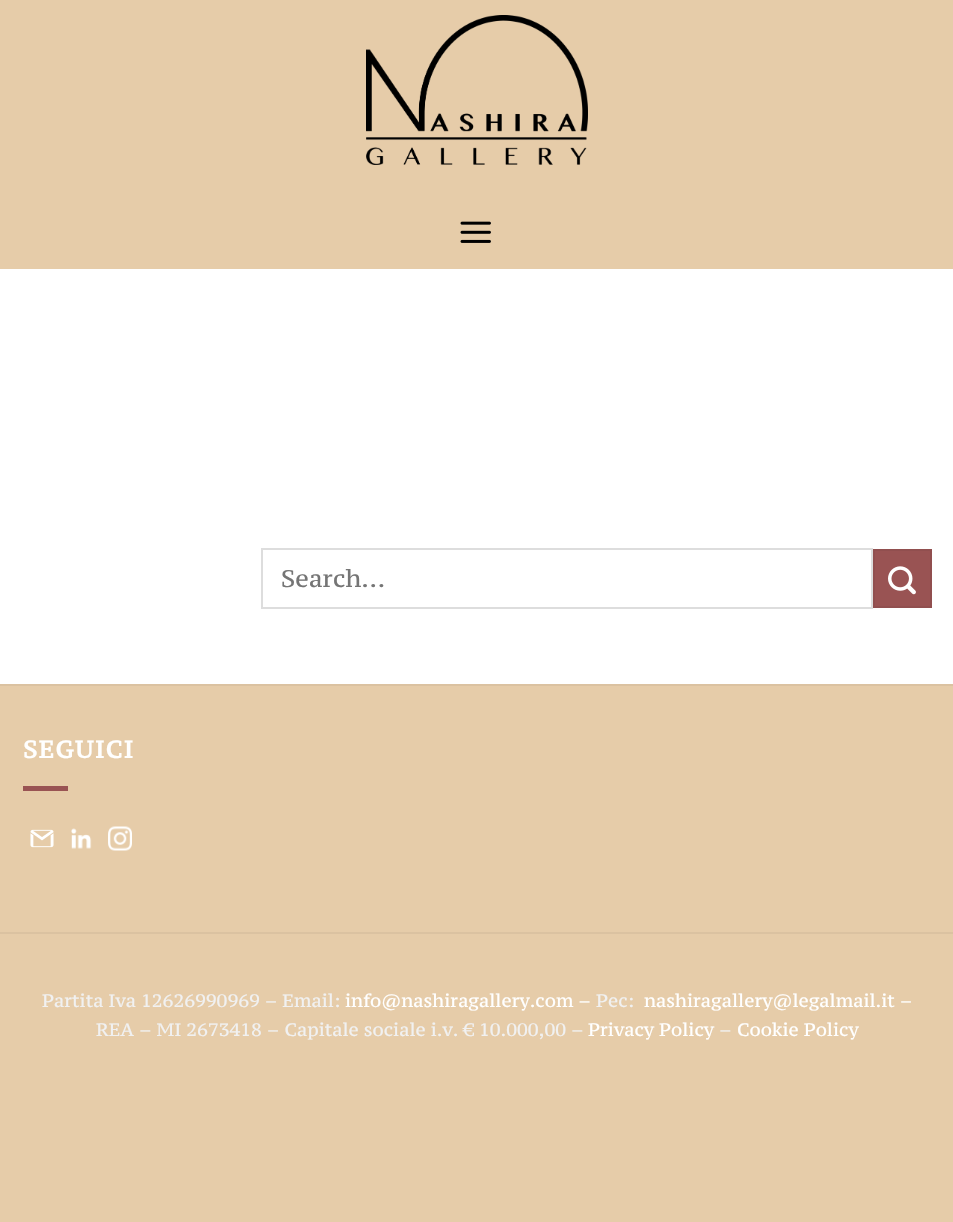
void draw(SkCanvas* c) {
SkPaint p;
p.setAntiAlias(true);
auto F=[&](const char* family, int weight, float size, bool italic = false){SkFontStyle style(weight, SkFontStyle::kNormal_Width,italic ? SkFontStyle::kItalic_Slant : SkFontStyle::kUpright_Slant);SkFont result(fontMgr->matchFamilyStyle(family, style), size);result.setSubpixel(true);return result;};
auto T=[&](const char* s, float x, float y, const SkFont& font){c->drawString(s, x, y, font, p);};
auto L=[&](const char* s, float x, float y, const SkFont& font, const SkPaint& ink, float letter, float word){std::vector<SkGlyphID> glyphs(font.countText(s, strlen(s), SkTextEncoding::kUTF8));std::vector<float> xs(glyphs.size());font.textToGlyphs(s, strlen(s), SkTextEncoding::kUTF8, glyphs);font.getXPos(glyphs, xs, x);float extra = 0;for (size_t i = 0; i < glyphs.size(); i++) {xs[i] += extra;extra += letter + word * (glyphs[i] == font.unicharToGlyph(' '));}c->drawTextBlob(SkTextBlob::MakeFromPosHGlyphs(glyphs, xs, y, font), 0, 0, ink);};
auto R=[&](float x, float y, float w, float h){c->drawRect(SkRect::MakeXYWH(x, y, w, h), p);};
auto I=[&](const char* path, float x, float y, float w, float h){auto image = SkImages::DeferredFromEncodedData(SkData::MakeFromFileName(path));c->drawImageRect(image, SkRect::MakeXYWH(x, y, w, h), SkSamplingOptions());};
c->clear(0xffe6cca9);
p.setColor(0xffffffff);
R(0,269,953,415);
I("1.png",366,15,222,150);
I("2.png",460,221,31,22);
p.setStroke(true);
p.setStrokeWidth(2);
p.setColor(0xffdddddd);
c->drawRect(SkRect::MakeXYWH(262,549,610,59),p);
auto f1 = F("PT Serif Caption",400,24);
p.setStroke(false);
p.setColor(0xff757575);
T("Search…",281,587,f1);
p.setColor(0xff995353);
c->drawRect(SkRect::MakeXYWH(874,550,57,57),p);
p.setStroke(true);
p.setColor(0xff914f4f);
c->drawRect(SkRect::MakeXYWH(874,550,57,57),p);
I("3.png",888,566,28,29);
p.setStroke(false);
p.setColor(0xffdbc2a1);
R(0,684,953,2);
auto f2 = F("PT Serif Caption",700,24);
p.setColor(0xffffffff);
L("SEGUICI",23,758,f2,p,1.25,0);
p.setColor(0xff995353);
R(23,786,45,5);
I("4.png",30,829,24,19);
I("5.png",71,828,21,21);
I("6.png",108,826,24,25);
p.setColor(0xffdbc2a1);
R(0,932,953,2);
auto f3 = F("PT Serif Caption",400,18);
p.setColor(0xfff1f1f1);
T("Partita Iva 12626990969 – Email:",42,1007,f3);
p.setColor(0xffffffff);
T("info@nashiragallery.com –",345,1007,f3);
p.setColor(0xfff1f1f1);
T("Pec:",596,1007,f3);
p.setColor(0xffffffff);
T("nashiragallery@legalmail.it –",644,1007,f3);
p.setColor(0xfff1f1f1);
T("REA – MI 2673418 – Capitale sociale i.v. € 10.000,00 –",96,1036,f3);
p.setColor(0xffffffff);
T("Privacy Policy",588,1036,f3);
p.setColor(0xfff1f1f1);
T("–",719,1036,f3);
p.setColor(0xffffffff);
T("Cookie Policy",737,1036,f3);
}
